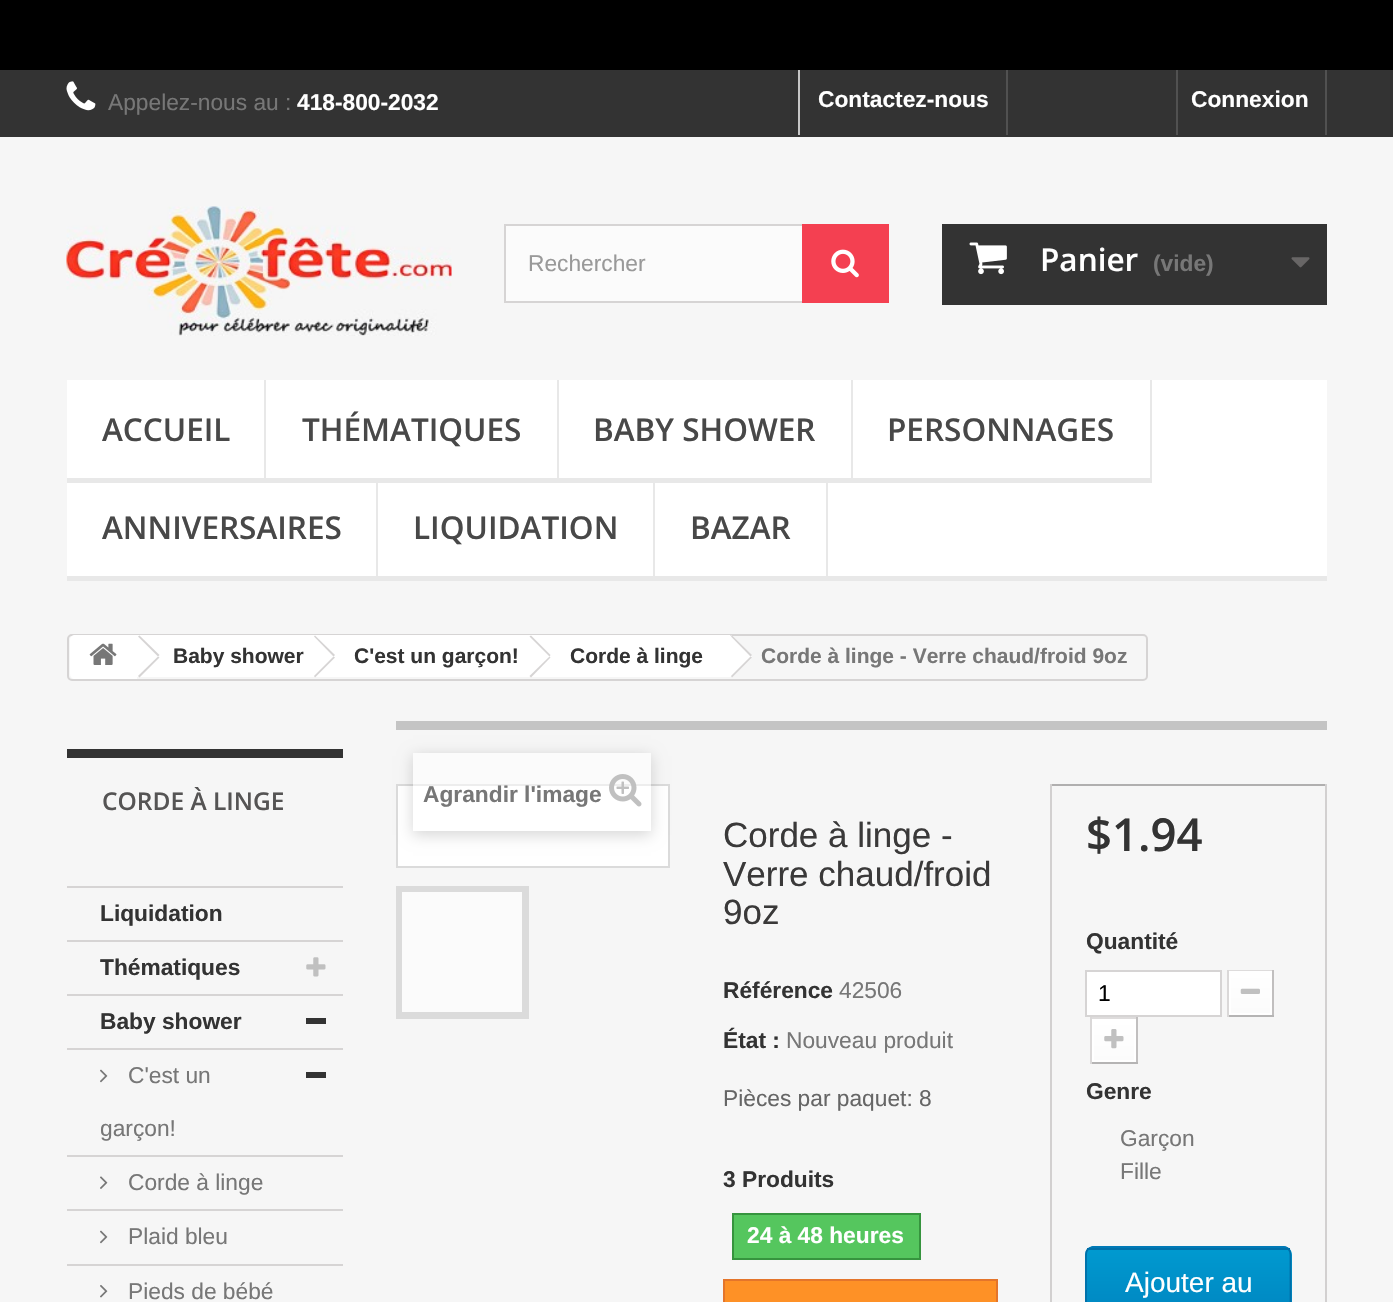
void draw(SkCanvas* c) {
SkPaint p;
p.setAntiAlias(true);
auto F=[&](const char* family, int weight, float size, bool italic = false){SkFontStyle style(weight, SkFontStyle::kNormal_Width,italic ? SkFontStyle::kItalic_Slant : SkFontStyle::kUpright_Slant);SkFont result(fontMgr->matchFamilyStyle(family, style), size);result.setSubpixel(true);return result;};
auto T=[&](const char* s, float x, float y, const SkFont& font){c->drawString(s, x, y, font, p);};
auto R=[&](float x, float y, float w, float h){c->drawRect(SkRect::MakeXYWH(x, y, w, h), p);};
auto I=[&](const char* path, float x, float y, float w, float h){auto image = SkImages::DeferredFromEncodedData(SkData::MakeFromFileName(path));c->drawImageRect(image, SkRect::MakeXYWH(x, y, w, h), SkSamplingOptions());};
auto P=[&](const char* data, bool evenOdd = false){SkPath result = *SkParsePath::FromSVGString(data);if (evenOdd) result.setFillType(SkPathFillType::kEvenOdd);return result;};
c->clear(0xfff6f6f6);
p.setColor(0xff000000);
R(0,0,1393,70);
p.setColor(0xff333333);
R(0,70,1393,67);
I("1.png",66,81,30,30);
auto f1 = F("Liberation Sans",400,22.75);
p.setColor(0xff777777);
T("Appelez-nous au :",108,110,f1);
auto f2 = F("Liberation Sans",700,22.75);
p.setColor(0xffffffff);
T("418-800-2032",297,110,f2);
p.setColor(0xffc6c6c6);
R(798,70,2,65);
p.setColor(0xffffffff);
T("Contactez-nous",818,107,f2);
p.setColor(0xff515151);
R(1006,70,2,65);
R(1325,70,2,65);
R(1176,70,2,65);
p.setColor(0xffffffff);
T("Connexion",1191,107,f2);
I("2.png",66,206,386,130);
p.setColor(0xfffbfbfb);
R(506,226,296,75);
p.setStroke(true);
p.setStrokeWidth(2);
p.setColor(0xffd6d4d4);
c->drawRect(SkRect::MakeXYWH(505,225,383,77),p);
p.setStroke(false);
p.setColor(0xff999999);
T("Rechercher",528,271,f1);
p.setColor(0xfff44051);
R(802,224,87,79);
I("3.png",831,249,28,29);
p.setColor(0xff333333);
R(942,224,385,81);
I("4.png",969,242,38,33);
auto f3 = F("Open Sans",600,31.5);
p.setColor(0xffffffff);
T("Panier",1040,271,f3);
p.setColor(0xff777777);
T("(vide)",1153,271,f2);
I("5.png",1291,257,19,11);
p.setColor(0xffffffff);
R(67,380,1260,196);
p.setColor(0xffe8e8e8);
R(67,576,1260,5);
R(264,380,2,103);
R(67,478,197,5);
p.setColor(0xff484848);
T("ACCUEIL",102,441,f3);
p.setColor(0xffe8e8e8);
R(557,380,2,103);
R(266,478,291,5);
p.setColor(0xff484848);
T("THÉMATIQUES",302,441,f3);
p.setColor(0xffe8e8e8);
R(851,380,2,103);
R(558,478,293,5);
p.setColor(0xff484848);
T("BABY SHOWER",593,441,f3);
p.setColor(0xffe8e8e8);
R(1150,380,2,103);
R(852,478,298,5);
p.setColor(0xff484848);
T("PERSONNAGES",887,441,f3);
p.setColor(0xffe8e8e8);
R(376,478,2,103);
p.setColor(0xff484848);
T("ANNIVERSAIRES",102,539,f3);
p.setColor(0xffe8e8e8);
R(653,478,2,103);
p.setColor(0xff484848);
T("LIQUIDATION",413,539,f3);
p.setColor(0xffe8e8e8);
R(826,478,2,103);
p.setColor(0xff484848);
T("BAZAR",690,539,f3);
p.setStroke(true);
p.setColor(0xffd6d4d4);
c->drawRoundRect(SkRect::MakeXYWH(68,635,1079,45),4,4,p);
p.setStroke(false);
p.setColor(0xffffffff);
c->drawPath(P("M75 635h62v44h-62c-3 0-5-2-5-5v-34c0-3 2-5 5-5z"),p);
I("6.png",89,643,28,22);
R(137,635,178,42);
p.setColor(0xffd6d4d4);
c->drawPath(P("M139.5 635.5l20 19.5l-1.5 1.5l-20-20z"),p);
c->drawPath(P("M158 656.5l1.5 1l-20 20l-1.5-1.5z"),p);
auto f4 = F("Liberation Sans",700,21);
p.setColor(0xff333333);
T("Baby shower",173,663,f4);
p.setColor(0xffffffff);
c->drawPath(P("M334 637l17 17c2 1 2 3 0 5l-17 17c-1 1-4 1-5 0l-17-17c-2-2-2-4 0-5l17-17c1-2 4-2 5 0z"),p);
R(315,635,217,42);
p.setColor(0xffd6d4d4);
c->drawPath(P("M315 635.5l20 19.5l-1.5 1.5l-19.5-20z"),p);
c->drawPath(P("M333.5 656.5l1.5 1l-20 20l-1-1.5z"),p);
p.setColor(0xff333333);
T("C'est un garçon!",354,663,f4);
p.setColor(0xffffffff);
c->drawPath(P("M550 637l17 17c1 1 1 3 0 5l-17 17c-2 1-4 1-5 0l-18-17c-1-2-1-4 0-5l18-17c1-2 3-2 5 0z"),p);
R(532,635,198,42);
p.setColor(0xffd6d4d4);
c->drawPath(P("M531 635.5l19.5 19.5l-1 1.5l-20-20z"),p);
c->drawPath(P("M549.5 656.5l1 1l-19.5 20l-1.5-1.5z"),p);
p.setColor(0xff333333);
T("Corde à linge",570,663,f4);
p.setColor(0xffffffff);
c->drawPath(P("M733 637l18 17c1 1 1 3 0 5l-18 17c-1 1-3 1-5 0l-17-17c-1-2-1-4 0-5l17-17c2-2 4-2 5 0z"),p);
p.setColor(0xffd6d4d4);
c->drawPath(P("M732 635.5l20 19.5l-1.5 1.5l-19.5-20z"),p);
c->drawPath(P("M750.5 656.5l1.5 1l-20 20l-1-1.5z"),p);
p.setColor(0xff777777);
T("Corde à linge - Verre chaud/froid 9oz",761,663,f4);
p.setColor(0xff333333);
R(67,749,276,9);
auto f5 = F("Open Sans",600,24.5);
p.setColor(0xff555454);
T("CORDE À LINGE",102,810,f5);
p.setColor(0xffd6d4d4);
R(67,886,276,2);
R(67,940,276,2);
p.setColor(0xff333333);
T("Liquidation",100,921,f2);
p.setColor(0xffd6d4d4);
R(67,994,276,2);
p.setColor(0xff333333);
T("Thématiques",100,975,f2);
I("7.png",306,957,20,20);
p.setColor(0xffd6d4d4);
R(67,1048,276,2);
p.setColor(0xff333333);
T("Baby shower",100,1029,f2);
R(306,1018,20,6);
p.setColor(0xffd6d4d4);
R(67,1155,276,2);
I("8.png",100,1069,8,14);
p.setColor(0xff777777);
T("C'est un",128,1083,f1);
T("garçon!",100,1136,f1);
p.setColor(0xff333333);
R(306,1072,20,6);
p.setColor(0xffd6d4d4);
R(67,1209,276,2);
I("9.png",100,1176,8,13);
p.setColor(0xff777777);
T("Corde à linge",128,1190,f1);
p.setColor(0xffd6d4d4);
R(67,1264,276,2);
I("8.png",100,1230,8,14);
p.setColor(0xff777777);
T("Plaid bleu",128,1244,f1);
I("10.png",100,1285,8,13);
T("Pieds de bébé",128,1299,f1);
p.setColor(0xffc4c4c4);
R(396,721,931,9);
p.setColor(0xffffffff);
c->drawRect(SkRect::MakeXYWH(397,785,272,82),p);
p.setStroke(true);
p.setColor(0xffdbdbdb);
c->drawRect(SkRect::MakeXYWH(397,785,272,82),p);
c->save();
c->clipPath(P("M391 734h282v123h-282zm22 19h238v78h-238z",true),true);
p.setStroke(false);
p.setColor(0x29000000);
p.setMaskFilter(SkMaskFilter::MakeBlur(kNormal_SkBlurStyle, 7));
c->drawRect(SkRect::MakeXYWH(413,756,238,79),p);
p.setMaskFilter(nullptr);
c->restore();
p.setColor(0x80ffffff);
R(413,753,238,33);
p.setColor(0xff777777);
T("Agrandir l'image",423,802,f2);
I("11.png",609,774,33,33);
p.setStroke(true);
p.setColor(0xffdbdbdb);
c->drawRect(SkRect::MakeXYWH(397,887,131,131),p);
p.setStroke(false);
p.setColor(0xfffbfbfb);
c->drawRect(SkRect::MakeXYWH(399.5,889.5,125,125),p);
p.setStroke(true);
p.setStrokeWidth(5);
p.setColor(0xffdbdbdb);
c->drawRect(SkRect::MakeXYWH(399.5,889.5,125,125),p);
auto f6 = F("Liberation Sans",400,35);
p.setStroke(false);
p.setColor(0xff3a3939);
T("Corde à linge -",723,847,f6);
T("Verre chaud/froid",723,886,f6);
T("9oz",723,924,f6);
p.setColor(0xff333333);
T("Référence",723,998,f2);
p.setColor(0xff777777);
T("42506",839,998,f1);
p.setColor(0xff333333);
T("État :",723,1048,f2);
p.setColor(0xff777777);
T("Nouveau produit",786,1048,f1);
p.setColor(0xff666666);
T("Pièces par paquet: 8",723,1106,f1);
p.setColor(0xff333333);
T("3 Produits",723,1187,f2);
p.setColor(0xff55c65e);
c->drawRect(SkRect::MakeXYWH(733,1214,187,45),p);
p.setStroke(true);
p.setStrokeWidth(2);
p.setColor(0xff36943e);
c->drawRect(SkRect::MakeXYWH(733,1214,187,45),p);
p.setStroke(false);
p.setColor(0xffffffff);
T("24 à 48 heures",747,1243,f2);
p.setColor(0xfffe9126);
c->drawRect(SkRect::MakeXYWH(724,1280,273,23),p);
p.setStroke(true);
p.setColor(0xffe4752b);
c->drawRect(SkRect::MakeXYWH(724,1280,273,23),p);
p.setStroke(false);
p.setColor(0xffb0afaf);
R(1050,784,277,2);
p.setColor(0xffd2d0d0);
R(1325,784,2,518);
R(1050,784,2,518);
auto f7 = F("Open Sans",600,45.5);
p.setColor(0xff333333);
T("$1.94",1086,851,f7);
T("Quantité",1086,949,f2);
p.setColor(0xffffffff);
c->drawRect(SkRect::MakeXYWH(1086,971,135,45),p);
p.setStroke(true);
p.setColor(0xffd6d4d4);
c->drawRect(SkRect::MakeXYWH(1086,971,135,45),p);
p.setStroke(false);
p.setColor(0xff000000);
T("1",1098,1001,f1);
p.setColor(0xffdedcdc);
R(1227,970,47,1);
p.setColor(0xffc1bfbf);
R(1272,970,2,47);
p.setColor(0xffb5b4b4);
R(1227,1015,47,2);
p.setColor(0xffdad8d8);
R(1227,970,2,47);
{
const SkColor colors[] = {0xffffffff,0xfffbfbfb};
const float stops[] = {0,1};
const SkPoint ends[] = {{1250,973}, {1250,1013}};
p.setShader(SkGradientShader::MakeLinear(ends, colors, stops, 2, SkTileMode::kClamp));
p.setAlpha(255);
}
R(1231,973,39,40);
p.setStroke(true);
p.setShader(nullptr);
p.setColor(0xffffffff);
c->drawRect(SkRect::MakeXYWH(1230,972,41,42),p);
I("12.png",1240,988,20,6);
p.setStroke(false);
p.setColor(0xffdedcdc);
R(1090,1017,48,2);
p.setColor(0xffc1bfbf);
R(1136,1017,2,47);
p.setColor(0xffb5b4b4);
R(1090,1062,48,2);
p.setColor(0xffdad8d8);
R(1090,1017,2,47);
{
const SkColor colors[] = {0xffffffff,0xfffbfbfb};
const float stops[] = {0,1};
const SkPoint ends[] = {{1114,1020}, {1114,1061}};
p.setShader(SkGradientShader::MakeLinear(ends, colors, stops, 2, SkTileMode::kClamp));
p.setAlpha(255);
}
R(1094,1021,40,39);
p.setStroke(true);
p.setShader(nullptr);
p.setColor(0xffffffff);
c->drawRect(SkRect::MakeXYWH(1093,1020,42,41),p);
I("13.png",1104,1029,20,20);
p.setStroke(false);
p.setColor(0xff333333);
T("Genre",1086,1099,f2);
p.setColor(0xff777777);
T("Garçon",1120,1146,f1);
T("Fille",1120,1179,f1);
c->save();
c->clipPath(P("M1094 1246h189c5 0 9 4 9 9v96c0 5-4 9-9 9h-189c-5 0-9-4-9-9v-96c0-5 4-9 9-9z"),true);
{
const SkColor colors[] = {0xff009ad0,0xff007ab7};
const float stops[] = {0,1};
const SkPoint ends[] = {{1188,1138}, {1188,1248}};
p.setShader(SkGradientShader::MakeLinear(ends, colors, stops, 2, SkTileMode::kClamp));
p.setAlpha(255);
}
R(1085,1246,207,2);
{
const SkColor colors[] = {0xff009ad0,0xff007ab7};
const float stops[] = {0,1};
const SkPoint ends[] = {{1188,1248}, {1188,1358}};
p.setShader(SkGradientShader::MakeLinear(ends, colors, stops, 2, SkTileMode::kClamp));
p.setAlpha(255);
}
R(1085,1249,207,53);
c->restore();
p.setStroke(true);
p.setStrokeWidth(1.8);
p.setShader(nullptr);
p.setColor(0xff0079b6);
c->drawPath(P("M1088 1249l5-2h190.5c2 0 3.5 1 5 2"),p);
p.setColor(0xff006fa8);
c->drawPath(P("M1288.5 1249c1.5 1.5 2 3.5 2 6v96c0 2-.5 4-2 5.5"),p);
c->drawPath(P("M1088 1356.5c-1.5-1.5-2-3.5-2-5.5v-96c0-2.5 .5-4.5 2-6"),p);
p.setStroke(false);
R(1087,1248,203,2);
auto f8 = F("Liberation Sans",400,28);
p.setColor(0xffffffff);
T("Ajouter au",1125,1292,f8);
}
